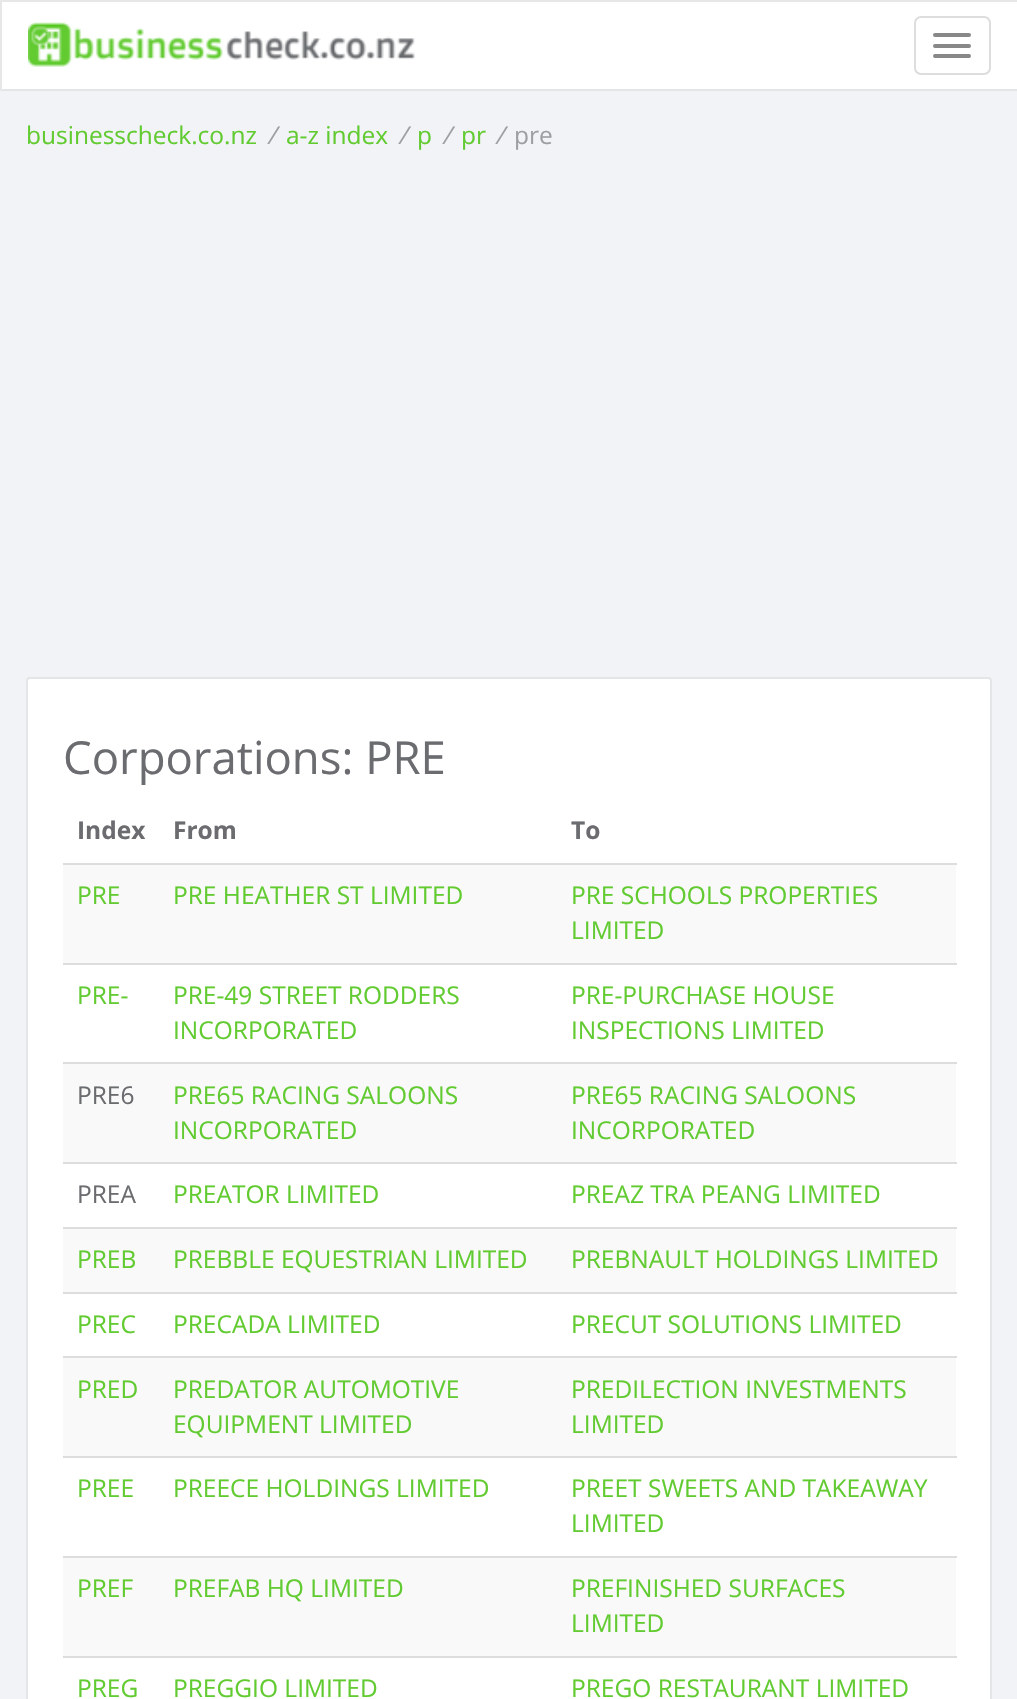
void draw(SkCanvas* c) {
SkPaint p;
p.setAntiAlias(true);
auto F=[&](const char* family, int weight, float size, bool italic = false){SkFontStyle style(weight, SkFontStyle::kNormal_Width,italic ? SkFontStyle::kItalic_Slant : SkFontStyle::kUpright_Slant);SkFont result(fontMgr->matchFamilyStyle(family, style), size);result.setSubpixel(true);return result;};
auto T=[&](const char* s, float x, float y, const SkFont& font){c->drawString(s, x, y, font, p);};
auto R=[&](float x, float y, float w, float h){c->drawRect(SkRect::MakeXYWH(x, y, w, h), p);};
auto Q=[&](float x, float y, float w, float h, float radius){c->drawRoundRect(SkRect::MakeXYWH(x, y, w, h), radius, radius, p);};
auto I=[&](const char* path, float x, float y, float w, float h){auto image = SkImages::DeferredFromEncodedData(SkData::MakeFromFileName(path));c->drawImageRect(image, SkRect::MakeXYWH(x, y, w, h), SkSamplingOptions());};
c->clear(0xfff1f3f6);
p.setColor(0xffffffff);
R(2,2,1015,87);
p.setColor(0xffe7e7e7);
R(0,0,1017,2);
p.setColor(0xffe4e5e7);
R(0,89,1017,2);
p.setColor(0xffe7e7e7);
R(0,0,2,91);
I("1.png",28,22,387,45);
p.setStroke(true);
p.setStrokeWidth(2);
p.setColor(0xffdddddd);
c->drawRoundRect(SkRect::MakeXYWH(915,17,75,57),6,6,p);
p.setStroke(false);
p.setColor(0xff888888);
Q(933,33,38,4,2);
Q(933,44,38,4,2);
Q(933,54,38,4,2);
auto f1 = F("Open Sans",400,24.5);
p.setColor(0xff62cb31);
T("businesscheck.co.nz",26,144,f1);
auto f2 = F("Open Sans",400,24.5,true);
p.setColor(0xff9d9fa2);
T("/",267,144,f2);
p.setColor(0xff62cb31);
T("a-z index",286,144,f1);
p.setColor(0xff9d9fa2);
T("/",398,144,f2);
p.setColor(0xff62cb31);
T("p",417,144,f1);
p.setColor(0xff9d9fa2);
T("/",442,144,f2);
p.setColor(0xff62cb31);
T("pr",461,144,f1);
p.setColor(0xff9d9fa2);
T("/",495,144,f2);
T("pre",514,144,f1);
p.setColor(0xffffffff);
c->drawRoundRect(SkRect::MakeXYWH(27,678,964,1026),3,3,p);
p.setStroke(true);
p.setColor(0xffe4e5e7);
c->drawRoundRect(SkRect::MakeXYWH(27,678,964,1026),3,3,p);
auto f3 = F("Open Sans",400,45.5);
p.setStroke(false);
p.setColor(0xff6a6c6f);
T("Corporations: PRE",63,774,f3);
auto f4 = F("Open Sans",700,24.5);
T("Index",77,839,f4);
T("From",173,839,f4);
T("To",571,839,f4);
p.setColor(0xfff9f9f9);
R(63,865,893,98);
p.setColor(0xff62cb31);
T("PRE",77,904,f1);
T("PRE HEATHER ST LIMITED",173,904,f1);
p.setColor(0xffdddddd);
R(63,863,894,2);
p.setColor(0xff62cb31);
T("PRE SCHOOLS PROPERTIES",571,904,f1);
T("LIMITED",571,939,f1);
T("PRE-",77,1004,f1);
T("PRE-49 STREET RODDERS",173,1004,f1);
T("INCORPORATED",173,1039,f1);
p.setColor(0xffdddddd);
R(63,963,894,2);
p.setColor(0xff62cb31);
T("PRE-PURCHASE HOUSE",571,1004,f1);
T("INSPECTIONS LIMITED",571,1039,f1);
p.setColor(0xfff9f9f9);
R(63,1064,893,98);
p.setColor(0xff6a6c6f);
T("PRE6",77,1104,f1);
p.setColor(0xff62cb31);
T("PRE65 RACING SALOONS",173,1104,f1);
T("INCORPORATED",173,1139,f1);
p.setColor(0xffdddddd);
R(63,1062,894,2);
p.setColor(0xff62cb31);
T("PRE65 RACING SALOONS",571,1104,f1);
T("INCORPORATED",571,1139,f1);
p.setColor(0xff6a6c6f);
T("PREA",77,1203,f1);
p.setColor(0xff62cb31);
T("PREATOR LIMITED",173,1203,f1);
p.setColor(0xffdddddd);
R(63,1162,894,2);
p.setColor(0xff62cb31);
T("PREAZ TRA PEANG LIMITED",571,1203,f1);
p.setColor(0xfff9f9f9);
R(63,1229,893,63);
p.setColor(0xff62cb31);
T("PREB",77,1268,f1);
T("PREBBLE EQUESTRIAN LIMITED",173,1268,f1);
p.setColor(0xffdddddd);
R(63,1227,894,2);
p.setColor(0xff62cb31);
T("PREBNAULT HOLDINGS LIMITED",571,1268,f1);
T("PREC",77,1333,f1);
T("PRECADA LIMITED",173,1333,f1);
p.setColor(0xffdddddd);
R(63,1292,894,2);
p.setColor(0xff62cb31);
T("PRECUT SOLUTIONS LIMITED",571,1333,f1);
p.setColor(0xfff9f9f9);
R(63,1358,893,98);
p.setColor(0xff62cb31);
T("PRED",77,1398,f1);
T("PREDATOR AUTOMOTIVE",173,1398,f1);
T("EQUIPMENT LIMITED",173,1433,f1);
p.setColor(0xffdddddd);
R(63,1356,894,2);
p.setColor(0xff62cb31);
T("PREDILECTION INVESTMENTS",571,1398,f1);
T("LIMITED",571,1433,f1);
T("PREE",77,1497,f1);
T("PREECE HOLDINGS LIMITED",173,1497,f1);
p.setColor(0xffdddddd);
R(63,1456,894,2);
p.setColor(0xff62cb31);
T("PREET SWEETS AND TAKEAWAY",571,1497,f1);
T("LIMITED",571,1532,f1);
p.setColor(0xfff9f9f9);
R(63,1558,893,98);
p.setColor(0xff62cb31);
T("PREF",77,1597,f1);
T("PREFAB HQ LIMITED",173,1597,f1);
p.setColor(0xffdddddd);
R(63,1556,894,2);
p.setColor(0xff62cb31);
T("PREFINISHED SURFACES",571,1597,f1);
T("LIMITED",571,1632,f1);
T("PREG",77,1697,f1);
T("PREGGIO LIMITED",173,1697,f1);
p.setColor(0xffdddddd);
R(63,1656,894,2);
p.setColor(0xff62cb31);
T("PREGO RESTAURANT LIMITED",571,1697,f1);
}
